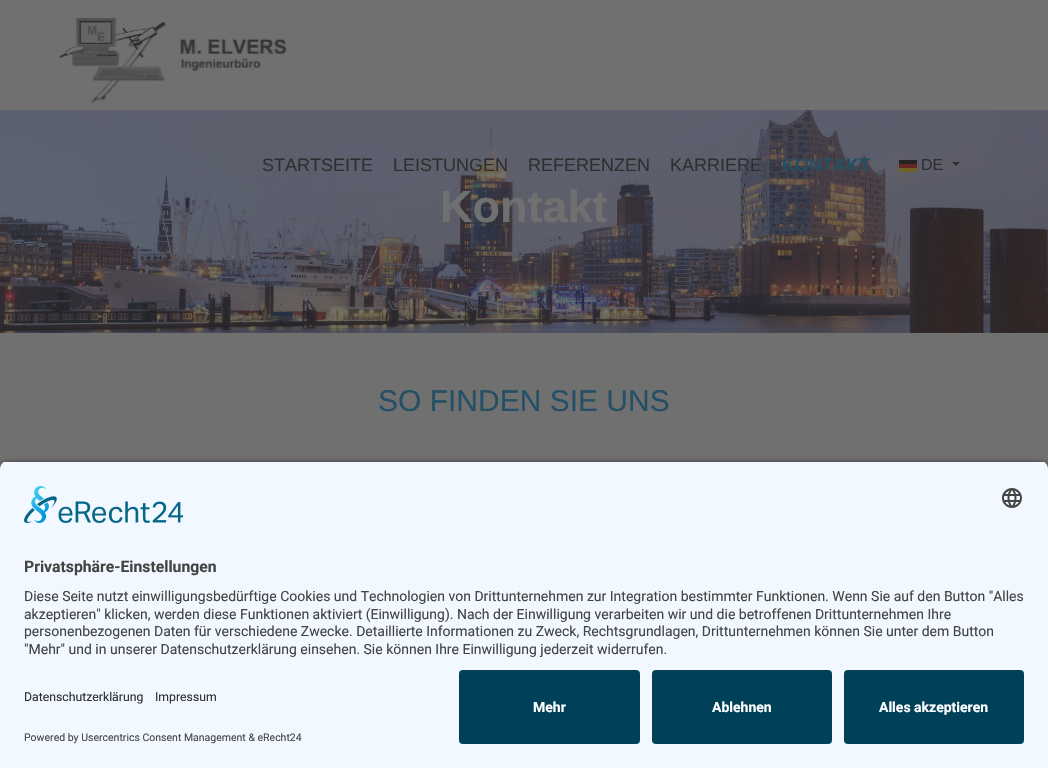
void draw(SkCanvas* c) {
SkPaint p;
p.setAntiAlias(true);
auto F=[&](const char* family, int weight, float size, bool italic = false){SkFontStyle style(weight, SkFontStyle::kNormal_Width,italic ? SkFontStyle::kItalic_Slant : SkFontStyle::kUpright_Slant);SkFont result(fontMgr->matchFamilyStyle(family, style), size);result.setSubpixel(true);return result;};
auto T=[&](const char* s, float x, float y, const SkFont& font){c->drawString(s, x, y, font, p);};
auto R=[&](float x, float y, float w, float h){c->drawRect(SkRect::MakeXYWH(x, y, w, h), p);};
auto Q=[&](float x, float y, float w, float h, float radius){c->drawRoundRect(SkRect::MakeXYWH(x, y, w, h), radius, radius, p);};
auto I=[&](const char* path, float x, float y, float w, float h){auto image = SkImages::DeferredFromEncodedData(SkData::MakeFromFileName(path));c->drawImageRect(image, SkRect::MakeXYWH(x, y, w, h), SkSamplingOptions());};
auto P=[&](const char* data, bool evenOdd = false){SkPath result = *SkParsePath::FromSVGString(data);if (evenOdd) result.setFillType(SkPathFillType::kEvenOdd);return result;};
c->clear(0xff707070);
I("1.png",59,18,228,85);
I("3.png",0,110,1048,223);
auto f1 = F("Liberation Sans",400,18);
p.setColor(0xff2e2f30);
T("STARTSEITE",262,171,f1);
T("LEISTUNGEN",393,171,f1);
T("REFERENZEN",528,171,f1);
T("KARRIERE",670,171,f1);
auto f2 = F("Liberation Sans",700,18);
p.setColor(0xff244f64);
T("KONTAKT",782,171,f2);
I("2.png",899,160,18,12);
auto f3 = F("Liberation Sans",400,16);
p.setColor(0xff2e2f30);
T("DE",921,170,f3);
c->drawPath(P("M952 162h8l-4 4z"),p);
auto f4 = F("Liberation Sans",700,45);
p.setColor(0xff707070);
T("Kontakt",440,222,f4);
auto f5 = F("Liberation Sans",400,30);
p.setColor(0xff244f64);
T("SO FINDEN SIE UNS",378,411,f5);
p.setColor(0xcc000000);
p.setMaskFilter(SkMaskFilter::MakeBlur(kNormal_SkBlurStyle, 3.5));
c->drawRoundRect(SkRect::MakeXYWH(0,464,1048,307),8,8,p);
p.setMaskFilter(nullptr);
c->save();
c->clipPath(P("M8 461h1032c4.5 0 8 3.5 8 8v193h-1048v-193c0-4.5 3.5-8 8-8z"),true);
p.setColor(0xfff1f8ff);
R(0,462,1048,200);
c->restore();
I("4.png",24,486,160,37);
I("5.png",1002,488,20,20);
auto f6 = F("Roboto",700,15.75);
p.setColor(0xff444444);
T("Privatsphäre-Einstellungen",24,572,f6);
auto f7 = F("Roboto",400,14);
T("Diese Seite nutzt einwilligungsbedürftige Cookies und Technologien von Drittunternehmen zur Integration bestimmter Funktionen. Wenn Sie auf den Button \"Alles",24,601,f7);
T("akzeptieren\" klicken, werden diese Funktionen aktiviert (Einwilligung). Nach der Einwilligung verarbeiten wir und die betroffenen Drittunternehmen Ihre",24,619,f7);
T("personenbezogenen Daten für verschiedene Zwecke. Detaillierte Informationen zu Zweck, Rechtsgrundlagen, Drittunternehmen können Sie unter dem Button",24,636,f7);
T("\"Mehr\" und in unserer Datenschutzerklärung einsehen. Sie können Ihre Einwilligung jederzeit widerrufen.",24,654,f7);
p.setColor(0xfff1f8ff);
R(0,662,1048,106);
auto f8 = F("Roboto",400,12.25);
p.setColor(0xff2e2f30);
T("Datenschutzerklärung",24,701,f8);
T("Impressum",155,701,f8);
auto f9 = F("Roboto",400,10.5);
p.setColor(0xff444444);
T("Powered by Usercentrics Consent Management & eRecht24",24,741,f9);
p.setColor(0xff004059);
Q(459,670,181,74,4);
auto f10 = F("Roboto",700,14);
p.setColor(0xffffffff);
T("Mehr",533,712,f10);
p.setColor(0xff004059);
Q(652,670,180,74,4);
p.setColor(0xffffffff);
T("Ablehnen",712,712,f10);
p.setColor(0xff004059);
Q(844,670,180,74,4);
p.setColor(0xffffffff);
T("Alles akzeptieren",879,712,f10);
}
